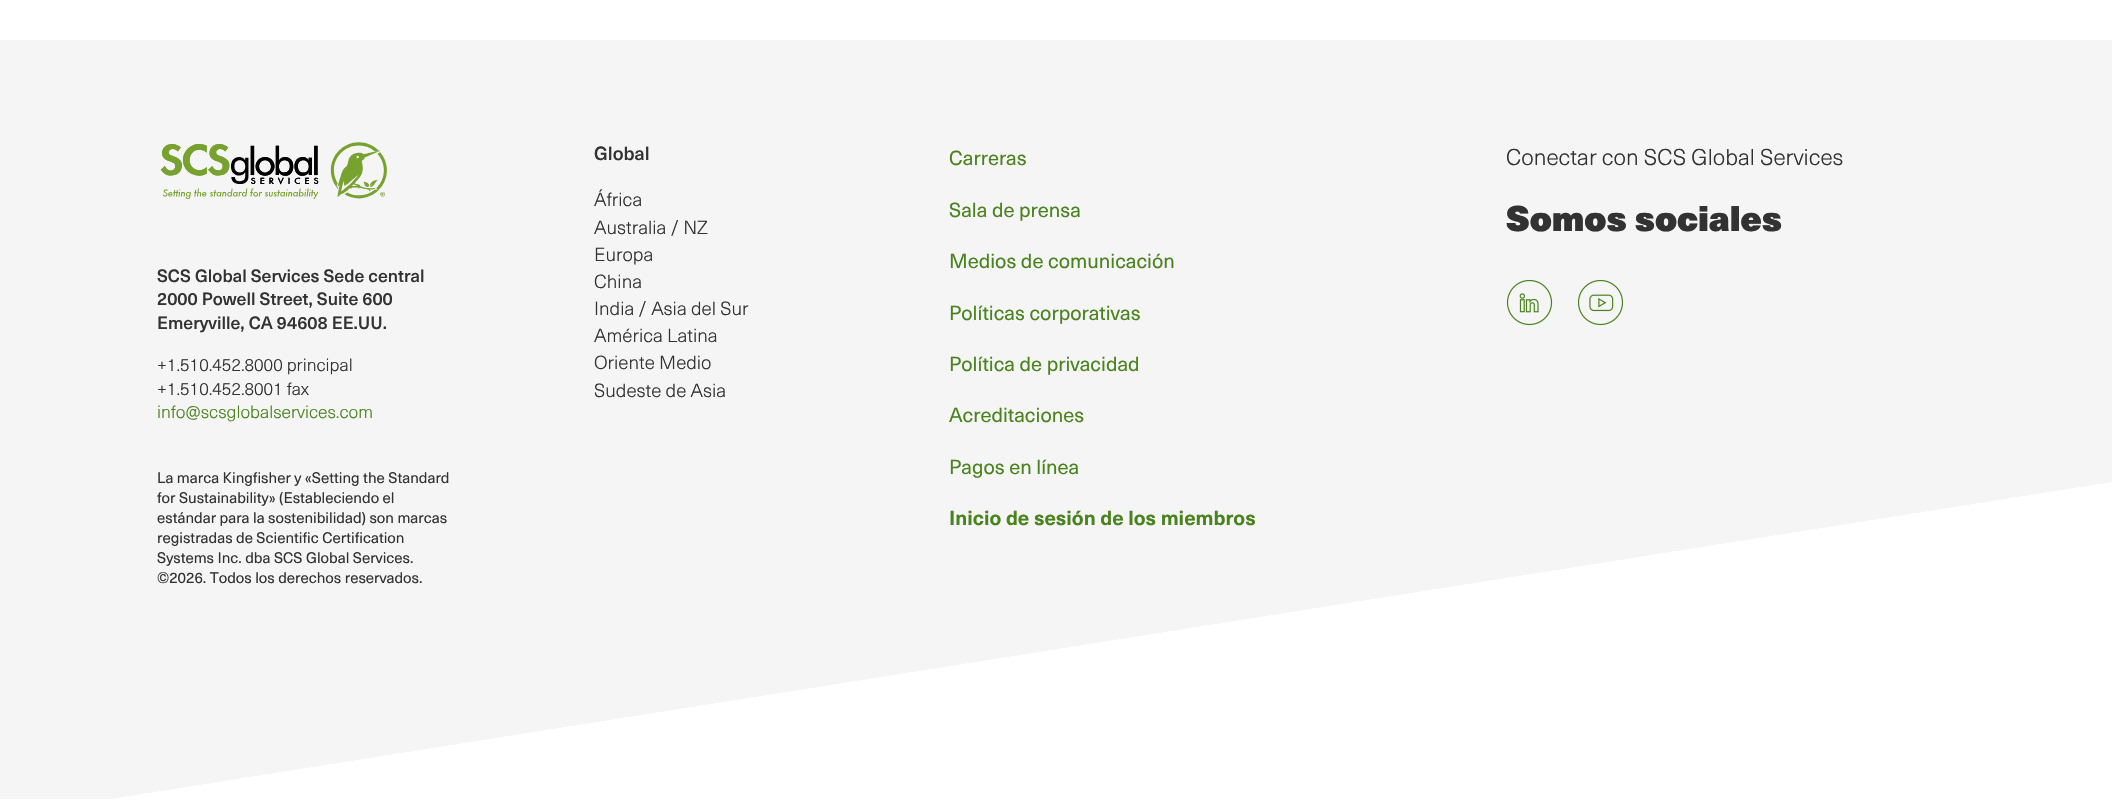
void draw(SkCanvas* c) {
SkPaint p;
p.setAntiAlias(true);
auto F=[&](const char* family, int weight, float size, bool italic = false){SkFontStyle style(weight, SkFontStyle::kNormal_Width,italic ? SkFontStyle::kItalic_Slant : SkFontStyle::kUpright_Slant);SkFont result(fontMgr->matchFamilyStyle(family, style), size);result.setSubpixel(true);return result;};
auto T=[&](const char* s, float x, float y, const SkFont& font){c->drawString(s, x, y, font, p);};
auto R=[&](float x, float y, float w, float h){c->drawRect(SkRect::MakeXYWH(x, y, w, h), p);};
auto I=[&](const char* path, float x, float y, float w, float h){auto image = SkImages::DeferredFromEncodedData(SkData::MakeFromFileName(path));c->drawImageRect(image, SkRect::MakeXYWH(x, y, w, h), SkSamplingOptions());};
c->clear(0xffffffff);
{
const SkColor colors[] = {0xfff5f5f5,0xffffffff};
const float stops[] = {.71,.71};
const SkPoint ends[] = {{972,-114}, {1141,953}};
p.setShader(SkGradientShader::MakeLinear(ends, colors, stops, 2, SkTileMode::kClamp));
p.setAlpha(255);
}
R(0,40,2112,759);
I("1.png",160,142,227,57);
auto f1 = F("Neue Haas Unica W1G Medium",500,17.5);
p.setShader(nullptr);
p.setColor(0xff323232);
T("SCS Global Services Sede central",157,282,f1);
T("2000 Powell Street, Suite 600",157,305,f1);
T("Emeryville, CA 94608 EE.UU.",157,329,f1);
auto f2 = F("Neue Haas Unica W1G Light",300,17.5);
T("+1.510.452.8000 principal",157,371,f2);
T("+1.510.452.8001 fax",157,395,f2);
p.setColor(0xff4a831e);
T("info@scsglobalservices.com",157,418,f2);
auto f3 = F("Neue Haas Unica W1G",400,15);
p.setColor(0xff323232);
T("La marca Kingfisher y «Setting the Standard",157,483,f3);
T("for Sustainability» (Estableciendo el",157,503,f3);
T("estándar para la sostenibilidad) son marcas",157,523,f3);
T("registradas de Scientific Certification",157,543,f3);
T("Systems Inc. dba SCS Global Services.",157,563,f3);
T("©2026. Todos los derechos reservados.",157,583,f3);
auto f4 = F("Neue Haas Unica W1G Medium",500,18.75);
T("Global",594,160,f4);
auto f5 = F("Neue Haas Unica W1G Light",300,18.75);
T("África",594,206,f5);
T("Australia / NZ",594,234,f5);
T("Europa",594,261,f5);
T("China",594,288,f5);
T("India / Asia del Sur",594,315,f5);
T("América Latina",594,342,f5);
T("Oriente Medio",594,369,f5);
T("Sudeste de Asia",594,397,f5);
auto f6 = F("Neue Haas Unica W1G",400,20);
p.setColor(0xff4a831e);
T("Carreras",949,165,f6);
T("Sala de prensa",949,217,f6);
T("Medios de comunicación",949,268,f6);
T("Políticas corporativas",949,320,f6);
T("Política de privacidad",949,371,f6);
T("Acreditaciones",949,422,f6);
T("Pagos en línea",949,474,f6);
auto f7 = F("Neue Haas Unica W1G",700,20);
T("Inicio de sesión de los miembros",949,525,f7);
auto f8 = F("Neue Haas Unica W1G Light",300,22.5);
p.setColor(0xff323232);
T("Conectar con SCS Global Services",1506,165,f8);
auto f9 = F("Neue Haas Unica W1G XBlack",900,35);
T("Somos sociales",1506,231,f9);
I("2.png",1506,280,47,46);
I("3.png",1578,280,46,46);
}
